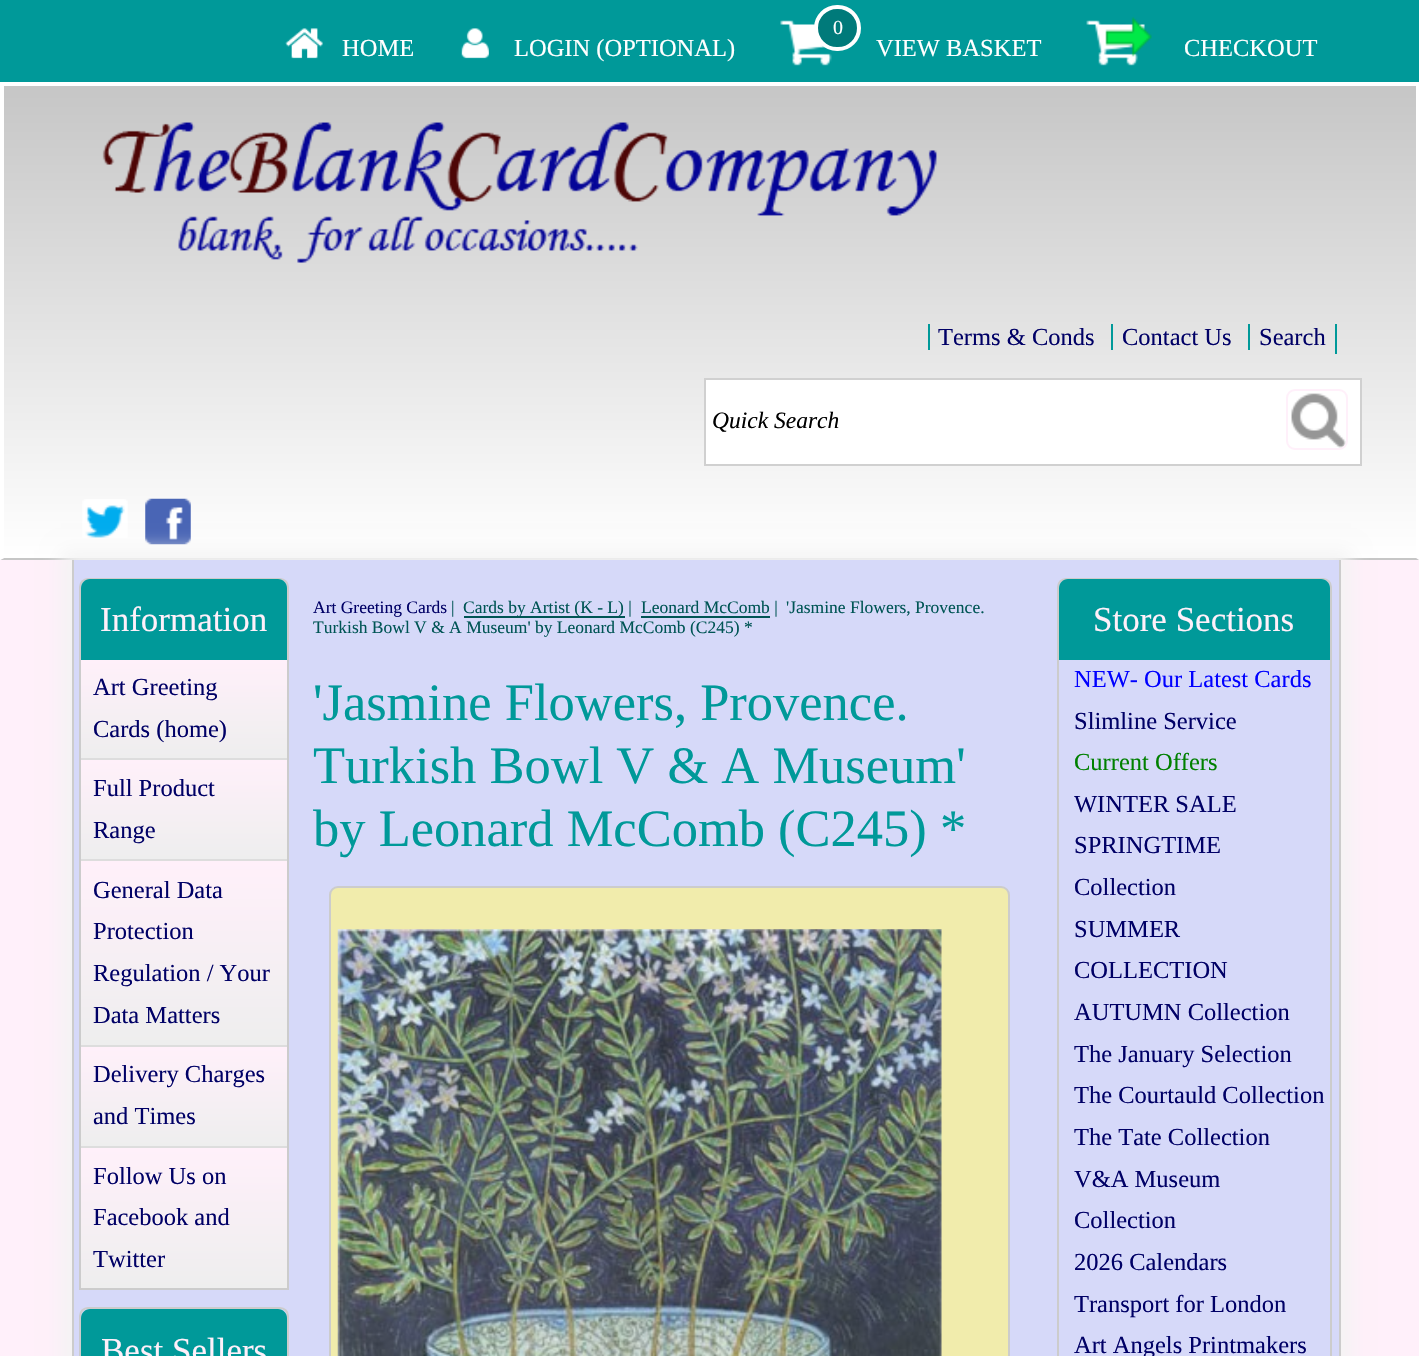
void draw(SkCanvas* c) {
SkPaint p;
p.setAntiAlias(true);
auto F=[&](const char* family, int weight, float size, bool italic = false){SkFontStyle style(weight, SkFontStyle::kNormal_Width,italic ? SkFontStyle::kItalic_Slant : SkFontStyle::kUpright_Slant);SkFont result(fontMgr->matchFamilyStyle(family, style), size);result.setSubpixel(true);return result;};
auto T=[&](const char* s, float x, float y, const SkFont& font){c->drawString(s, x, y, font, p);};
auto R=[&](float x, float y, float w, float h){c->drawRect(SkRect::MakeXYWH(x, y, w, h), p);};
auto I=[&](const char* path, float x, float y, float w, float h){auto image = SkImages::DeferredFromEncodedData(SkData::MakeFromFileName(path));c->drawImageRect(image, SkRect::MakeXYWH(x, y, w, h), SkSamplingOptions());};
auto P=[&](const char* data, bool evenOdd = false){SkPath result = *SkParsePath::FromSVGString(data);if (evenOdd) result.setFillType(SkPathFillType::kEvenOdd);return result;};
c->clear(0xffffffff);
{
const SkColor colors[] = {0xff009999,0xfffff0fa,0xfffff0fa};
const float stops[] = {.02,.04,1};
const SkPoint ends[] = {{710,0}, {710,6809}};
p.setShader(SkGradientShader::MakeLinear(ends, colors, stops, 3, SkTileMode::kClamp));
p.setAlpha(255);
}
R(0,0,1419,1356);
I("1.png",285,28,38,31);
auto f1 = F("Liberation Serif",400,24.5);
p.setShader(nullptr);
p.setColor(0xffffffff);
T("HOME",342,56,f1);
I("2.png",461,28,28,31);
T("LOGIN (OPTIONAL)",514,56,f1);
I("3.png",780,20,52,46);
p.setColor(0xff007a7a);
c->drawRoundRect(SkRect::MakeXYWH(816,7,43,42),21,21,p);
p.setStroke(true);
p.setStrokeWidth(4);
p.setColor(0xffffffff);
c->drawRoundRect(SkRect::MakeXYWH(816,7,43,42),21,21,p);
auto f2 = F("Liberation Serif",400,20);
p.setStroke(false);
T("0",833,34,f2);
T("VIEW BASKET",876,56,f1);
I("4.png",1086,17,66,49);
T("CHECKOUT",1184,56,f1);
{
const SkColor colors[] = {0xffc6c6c6,0xffffffff};
const float stops[] = {0,1};
const SkPoint ends[] = {{710,86}, {710,558}};
p.setShader(SkGradientShader::MakeLinear(ends, colors, stops, 2, SkTileMode::kClamp));
p.setAlpha(255);
}
R(4,86,1412,472);
p.setShader(nullptr);
p.setColor(0xffffffff);
R(0,82,1419,4);
c->drawPath(P("M1419 82v478l-3-2v-472z"),p);
p.setColor(0xffc6c6c6);
c->drawPath(P("M1419 560h-1419l4-2h1412z"),p);
p.setColor(0xffffffff);
c->drawPath(P("M0 560v-478l4 4v472z"),p);
I("5.png",102,122,835,141);
p.setColor(0xff009999);
R(1335,324,2,30);
p.setColor(0xff000066);
T("Terms & Conds",938,345,f1);
p.setColor(0xff009999);
R(928,324,2,26);
p.setColor(0xff000066);
T("Contact Us",1122,345,f1);
p.setColor(0xff009999);
R(1111,324,2,26);
p.setColor(0xff000066);
T("Search",1259,345,f1);
p.setColor(0xff009999);
R(1248,324,2,26);
p.setColor(0xffffffff);
c->drawRect(SkRect::MakeXYWH(705,379,656,86),p);
p.setStroke(true);
p.setStrokeWidth(2);
p.setColor(0xffd0d0d0);
c->drawRect(SkRect::MakeXYWH(705,379,656,86),p);
auto f3 = F("Liberation Serif",400,23.5,true);
p.setStroke(false);
p.setColor(0xff000000);
T("Quick Search",712,428,f3);
I("6.png",1291,393,55,55);
p.setStroke(true);
p.setColor(0xfffff0fa);
c->drawRoundRect(SkRect::MakeXYWH(1287,390,60,59),8,8,p);
I("7.png",82,499,46,39);
I("8.png",145,498,46,47);
p.setStroke(false);
p.setColor(0xfff4f4f4);
p.setMaskFilter(SkMaskFilter::MakeBlur(kNormal_SkBlurStyle, 9));
c->drawRect(SkRect::MakeXYWH(61,550,1290,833),p);
p.setMaskFilter(nullptr);
p.setColor(0xffd6d9f9);
R(74,560,1265,796);
p.setColor(0xffcccccc);
R(1339,560,2,796);
R(72,560,2,796);
p.setStroke(true);
c->drawPath(P("M88 579h192c4.5 0 8 3.5 8 8v702h-208v-702c0-4.5 3.5-8 8-8z"),p);
p.setStroke(false);
p.setColor(0xff009999);
c->drawPath(P("M90 579h188c5 0 9 4 9 9v72h-206v-72c0-5 4-9 9-9z"),p);
auto f4 = F("Liberation Serif",400,35);
p.setColor(0xfffff0fa);
T("Information",100,631,f4);
{
const SkColor colors[] = {0xfffff0fa,0xffeeeeee};
const float stops[] = {0,1};
const SkPoint ends[] = {{184,660}, {184,758}};
p.setShader(SkGradientShader::MakeLinear(ends, colors, stops, 2, SkTileMode::kClamp));
p.setAlpha(255);
}
R(81,660,206,98);
p.setShader(nullptr);
p.setColor(0xffdddddd);
R(81,758,206,2);
p.setColor(0xff000066);
T("Art Greeting",93,695,f1);
T("Cards (home)",93,737,f1);
{
const SkColor colors[] = {0xfffff0fa,0xffeeeeee};
const float stops[] = {0,1};
const SkPoint ends[] = {{184,760}, {184,859}};
p.setShader(SkGradientShader::MakeLinear(ends, colors, stops, 2, SkTileMode::kClamp));
p.setAlpha(255);
}
R(81,760,206,99);
p.setShader(nullptr);
p.setColor(0xffdddddd);
R(81,859,206,2);
p.setColor(0xff000066);
T("Full Product",93,796,f1);
T("Range",93,838,f1);
{
const SkColor colors[] = {0xfffff0fa,0xffeeeeee};
const float stops[] = {0,1};
const SkPoint ends[] = {{184,861}, {184,1045}};
p.setShader(SkGradientShader::MakeLinear(ends, colors, stops, 2, SkTileMode::kClamp));
p.setAlpha(255);
}
R(81,861,206,184);
p.setShader(nullptr);
p.setColor(0xffdddddd);
R(81,1045,206,2);
p.setColor(0xff000066);
T("General Data",93,898,f1);
T("Protection",93,939,f1);
T("Regulation / Your",93,981,f1);
T("Data Matters",93,1023,f1);
{
const SkColor colors[] = {0xfffff0fa,0xffeeeeee};
const float stops[] = {0,1};
const SkPoint ends[] = {{184,1047}, {184,1146}};
p.setShader(SkGradientShader::MakeLinear(ends, colors, stops, 2, SkTileMode::kClamp));
p.setAlpha(255);
}
R(81,1047,206,99);
p.setShader(nullptr);
p.setColor(0xffdddddd);
R(81,1146,206,2);
p.setColor(0xff000066);
T("Delivery Charges",93,1082,f1);
T("and Times",93,1124,f1);
{
const SkColor colors[] = {0xfffff0fa,0xffeeeeee};
const float stops[] = {0,1};
const SkPoint ends[] = {{184,1148}, {184,1288}};
p.setShader(SkGradientShader::MakeLinear(ends, colors, stops, 2, SkTileMode::kClamp));
p.setAlpha(255);
}
R(81,1148,206,140);
p.setShader(nullptr);
p.setColor(0xff000066);
T("Follow Us on",93,1184,f1);
T("Facebook and",93,1225,f1);
T("Twitter",93,1267,f1);
p.setStroke(true);
p.setColor(0xffcccccc);
c->drawPath(P("M88 1308h192c4.5 0 8 3.5 8 8v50h-208v-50c0-4.5 3.5-8 8-8z"),p);
p.setStroke(false);
p.setColor(0xff009999);
c->drawPath(P("M90 1309h188c5 0 9 4 9 9v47h-206v-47c0-5 4-9 9-9z"),p);
p.setColor(0xfffff0fa);
T("Best Sellers",101,1362,f4);
auto f5 = F("Liberation Serif",400,17.5);
p.setColor(0xff000066);
T("Art Greeting Cards",313,613,f5);
p.setColor(0xff005555);
T("|",451,613,f5);
R(464,616,161,2);
T("Cards by Artist (K - L) |",463,613,f5);
R(641,616,129,2);
T("Leonard McComb |",641,613,f5);
T("'Jasmine Flowers, Provence.",786,613,f5);
T("Turkish Bowl V & A Museum' by Leonard McComb (C245) *",313,633,f5);
auto f6 = F("Liberation Serif",400,52.5);
p.setColor(0xff009999);
T("'Jasmine Flowers, Provence.",313,720,f6);
T("Turkish Bowl V & A Museum'",313,783,f6);
T("by Leonard McComb (C245) *",313,846,f6);
p.setColor(0xfff1ecac);
c->drawRoundRect(SkRect::MakeXYWH(330,887,679,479),8,8,p);
p.setStroke(true);
p.setColor(0xffcccccc);
c->drawRoundRect(SkRect::MakeXYWH(330,887,679,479),8,8,p);
I("9.png",337,929,605,427);
c->drawPath(P("M1066 579h257c4.5 0 8 3.5 8 8v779h-273v-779c0-4.5 3.5-8 8-8z"),p);
p.setStroke(false);
p.setColor(0xff009999);
c->drawPath(P("M1068 579h253c5 0 9 4 9 9v72h-271v-72c0-5 4-9 9-9z"),p);
p.setColor(0xfffff0fa);
T("Store Sections",1093,631,f4);
p.setColor(0xff0000ff);
T("NEW- Our Latest Cards",1074,687,f1);
p.setColor(0xff000066);
T("Slimline Service",1074,729,f1);
p.setColor(0xff008000);
T("Current Offers",1074,770,f1);
p.setColor(0xff000066);
T("WINTER SALE",1074,812,f1);
T("SPRINGTIME",1074,853,f1);
T("Collection",1074,895,f1);
T("SUMMER",1074,937,f1);
T("COLLECTION",1074,978,f1);
T("AUTUMN Collection",1074,1020,f1);
T("The January Selection",1074,1062,f1);
T("The Courtauld Collection",1074,1103,f1);
T("The Tate Collection",1074,1145,f1);
T("V&A Museum",1074,1187,f1);
T("Collection",1074,1228,f1);
T("2026 Calendars",1074,1270,f1);
T("Transport for London",1074,1312,f1);
T("Art Angels Printmakers",1074,1353,f1);
}
